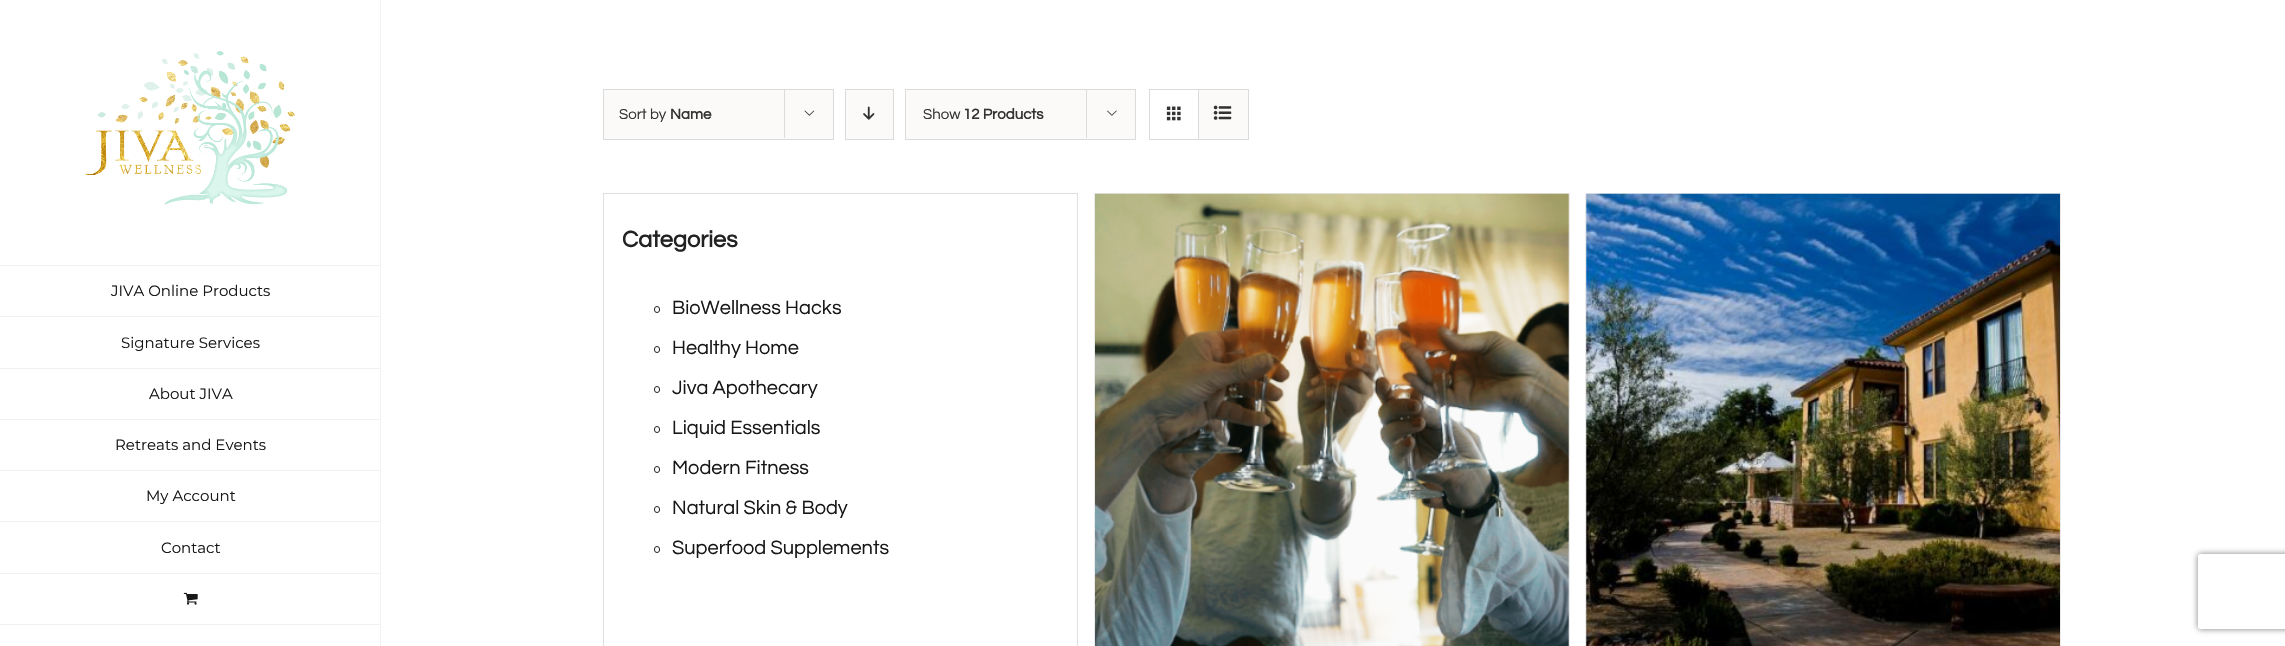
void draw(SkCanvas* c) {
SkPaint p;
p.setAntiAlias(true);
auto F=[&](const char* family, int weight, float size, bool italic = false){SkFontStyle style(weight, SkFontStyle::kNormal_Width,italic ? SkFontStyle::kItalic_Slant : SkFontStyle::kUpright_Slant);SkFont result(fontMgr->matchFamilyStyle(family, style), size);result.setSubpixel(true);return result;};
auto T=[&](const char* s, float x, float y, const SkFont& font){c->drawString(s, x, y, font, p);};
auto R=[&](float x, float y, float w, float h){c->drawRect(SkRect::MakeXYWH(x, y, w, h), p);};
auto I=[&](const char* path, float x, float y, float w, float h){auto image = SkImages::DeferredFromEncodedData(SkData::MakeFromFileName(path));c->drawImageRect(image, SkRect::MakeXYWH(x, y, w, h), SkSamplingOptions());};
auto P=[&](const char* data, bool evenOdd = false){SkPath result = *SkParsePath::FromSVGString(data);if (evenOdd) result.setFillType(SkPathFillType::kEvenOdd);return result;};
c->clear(0xffffffff);
I("1.png",85,51,210,154);
p.setColor(0xfff2f2f2);
R(380,0,1,646);
R(0,265,381,1);
R(0,316,381,1);
auto f1 = F("Montserrat",100,15);
p.setColor(0xff171717);
T("JIVA Online Products",111,296,f1);
p.setColor(0xfff2f2f2);
R(0,368,381,1);
p.setColor(0xff171717);
T("Signature Services",121,348,f1);
p.setColor(0xfff2f2f2);
R(0,419,381,1);
p.setColor(0xff171717);
T("About JIVA",149,399,f1);
p.setColor(0xfff2f2f2);
R(0,470,381,1);
p.setColor(0xff171717);
T("Retreats and Events",115,450,f1);
p.setColor(0xfff2f2f2);
R(0,521,381,1);
p.setColor(0xff171717);
T("My Account",146,501,f1);
p.setColor(0xfff2f2f2);
R(0,573,381,1);
p.setColor(0xff171717);
T("Contact",161,553,f1);
p.setColor(0xfff2f2f2);
R(0,624,381,1);
I("2.png",183,592,15,13);
p.setColor(0xfffbfaf9);
c->drawRect(SkRect::MakeXYWH(603.5,89.5,230,50),p);
p.setStroke(true);
p.setStrokeWidth(1);
p.setColor(0xffdbdbdb);
c->drawRect(SkRect::MakeXYWH(603.5,89.5,230,50),p);
auto f2 = F("Questrial",400,15);
p.setStroke(false);
p.setColor(0xff333333);
T("Sort by",619,119,f2);
auto f3 = F("Questrial",700,15);
T("Name",670,119,f3);
p.setColor(0xffdbdbdb);
R(784,89,1,49);
I("3.png",804,110,11,6);
p.setColor(0xfffbfaf9);
c->drawRect(SkRect::MakeXYWH(845.5,89.5,48,50),p);
p.setStroke(true);
p.setColor(0xffdbdbdb);
c->drawRect(SkRect::MakeXYWH(845.5,89.5,48,50),p);
I("4.png",863,106,12,14);
p.setStroke(false);
p.setColor(0xfffbfaf9);
c->drawRect(SkRect::MakeXYWH(905.5,89.5,230,50),p);
p.setStroke(true);
p.setColor(0xffdbdbdb);
c->drawRect(SkRect::MakeXYWH(905.5,89.5,230,50),p);
p.setStroke(false);
p.setColor(0xff333333);
T("Show",923,119,f2);
T("12 Products",963,119,f3);
p.setColor(0xffdbdbdb);
R(1086,89,1,49);
I("5.png",1107,110,10,6);
p.setStroke(true);
c->drawRect(SkRect::MakeXYWH(1149.5,89.5,99,50),p);
p.setStroke(false);
R(1198,90,1,49);
I("6.png",1166,106,15,15);
p.setColor(0xfffbfaf9);
R(1199,90,49,49);
I("7.png",1213,105,19,15);
p.setStroke(true);
p.setColor(0xffdfdfdf);
c->drawRect(SkRect::MakeXYWH(603.5,193.5,474,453),p);
auto f4 = F("Questrial",700,23.5);
p.setStroke(false);
p.setColor(0xff222222);
T("Categories",622,247,f4);
p.setStroke(true);
c->drawRoundRect(SkRect::MakeXYWH(654.5,306.5,5,6),2.5,2.5,p);
auto f5 = F("Questrial",400,20);
p.setStroke(false);
p.setColor(0xff171717);
T("BioWellness Hacks",672,314,f5);
p.setStroke(true);
p.setColor(0xff222222);
c->drawRoundRect(SkRect::MakeXYWH(654.5,346.5,5,6),2.5,2.5,p);
p.setStroke(false);
p.setColor(0xff171717);
T("Healthy Home",672,354,f5);
p.setStroke(true);
p.setColor(0xff222222);
c->drawRoundRect(SkRect::MakeXYWH(654.5,386.5,5,6),2.5,2.5,p);
p.setStroke(false);
p.setColor(0xff171717);
T("Jiva Apothecary",672,394,f5);
p.setStroke(true);
p.setColor(0xff222222);
c->drawRoundRect(SkRect::MakeXYWH(654.5,426.5,5,6),2.5,2.5,p);
p.setStroke(false);
p.setColor(0xff171717);
T("Liquid Essentials",672,434,f5);
p.setStroke(true);
p.setColor(0xff222222);
c->drawRoundRect(SkRect::MakeXYWH(654.5,466.5,5,6),2.5,2.5,p);
p.setStroke(false);
p.setColor(0xff171717);
T("Modern Fitness",672,474,f5);
p.setStroke(true);
p.setColor(0xff222222);
c->drawRoundRect(SkRect::MakeXYWH(654.5,506.5,5,6),2.5,2.5,p);
p.setStroke(false);
p.setColor(0xff171717);
T("Natural Skin & Body",672,514,f5);
p.setStroke(true);
p.setColor(0xff222222);
c->drawRoundRect(SkRect::MakeXYWH(654.5,546.5,5,6),2.5,2.5,p);
p.setStroke(false);
p.setColor(0xff171717);
T("Superfood Supplements",672,554,f5);
p.setColor(0xffebeaea);
R(1094,193,476,1);
R(1569,193,1,453);
R(1094,193,1,453);
I("8.png",1095,193,474,453);
R(1585,193,476,1);
R(2060,193,1,453);
R(1585,193,1,453);
I("9.png",1586,193,474,453);
c->save();
c->clipPath(P("M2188 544h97v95h-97zm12.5 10h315c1.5 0 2.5 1 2.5 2.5v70c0 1.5-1 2.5-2.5 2.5h-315c-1.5 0-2.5-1-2.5-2.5v-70c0-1.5 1-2.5 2.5-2.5z",true),true);
p.setColor(0xff808080);
p.setMaskFilter(SkMaskFilter::MakeBlur(kNormal_SkBlurStyle, 3));
c->drawRoundRect(SkRect::MakeXYWH(2198,554,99,75),2.5,2.5,p);
p.setMaskFilter(nullptr);
c->restore();
}
